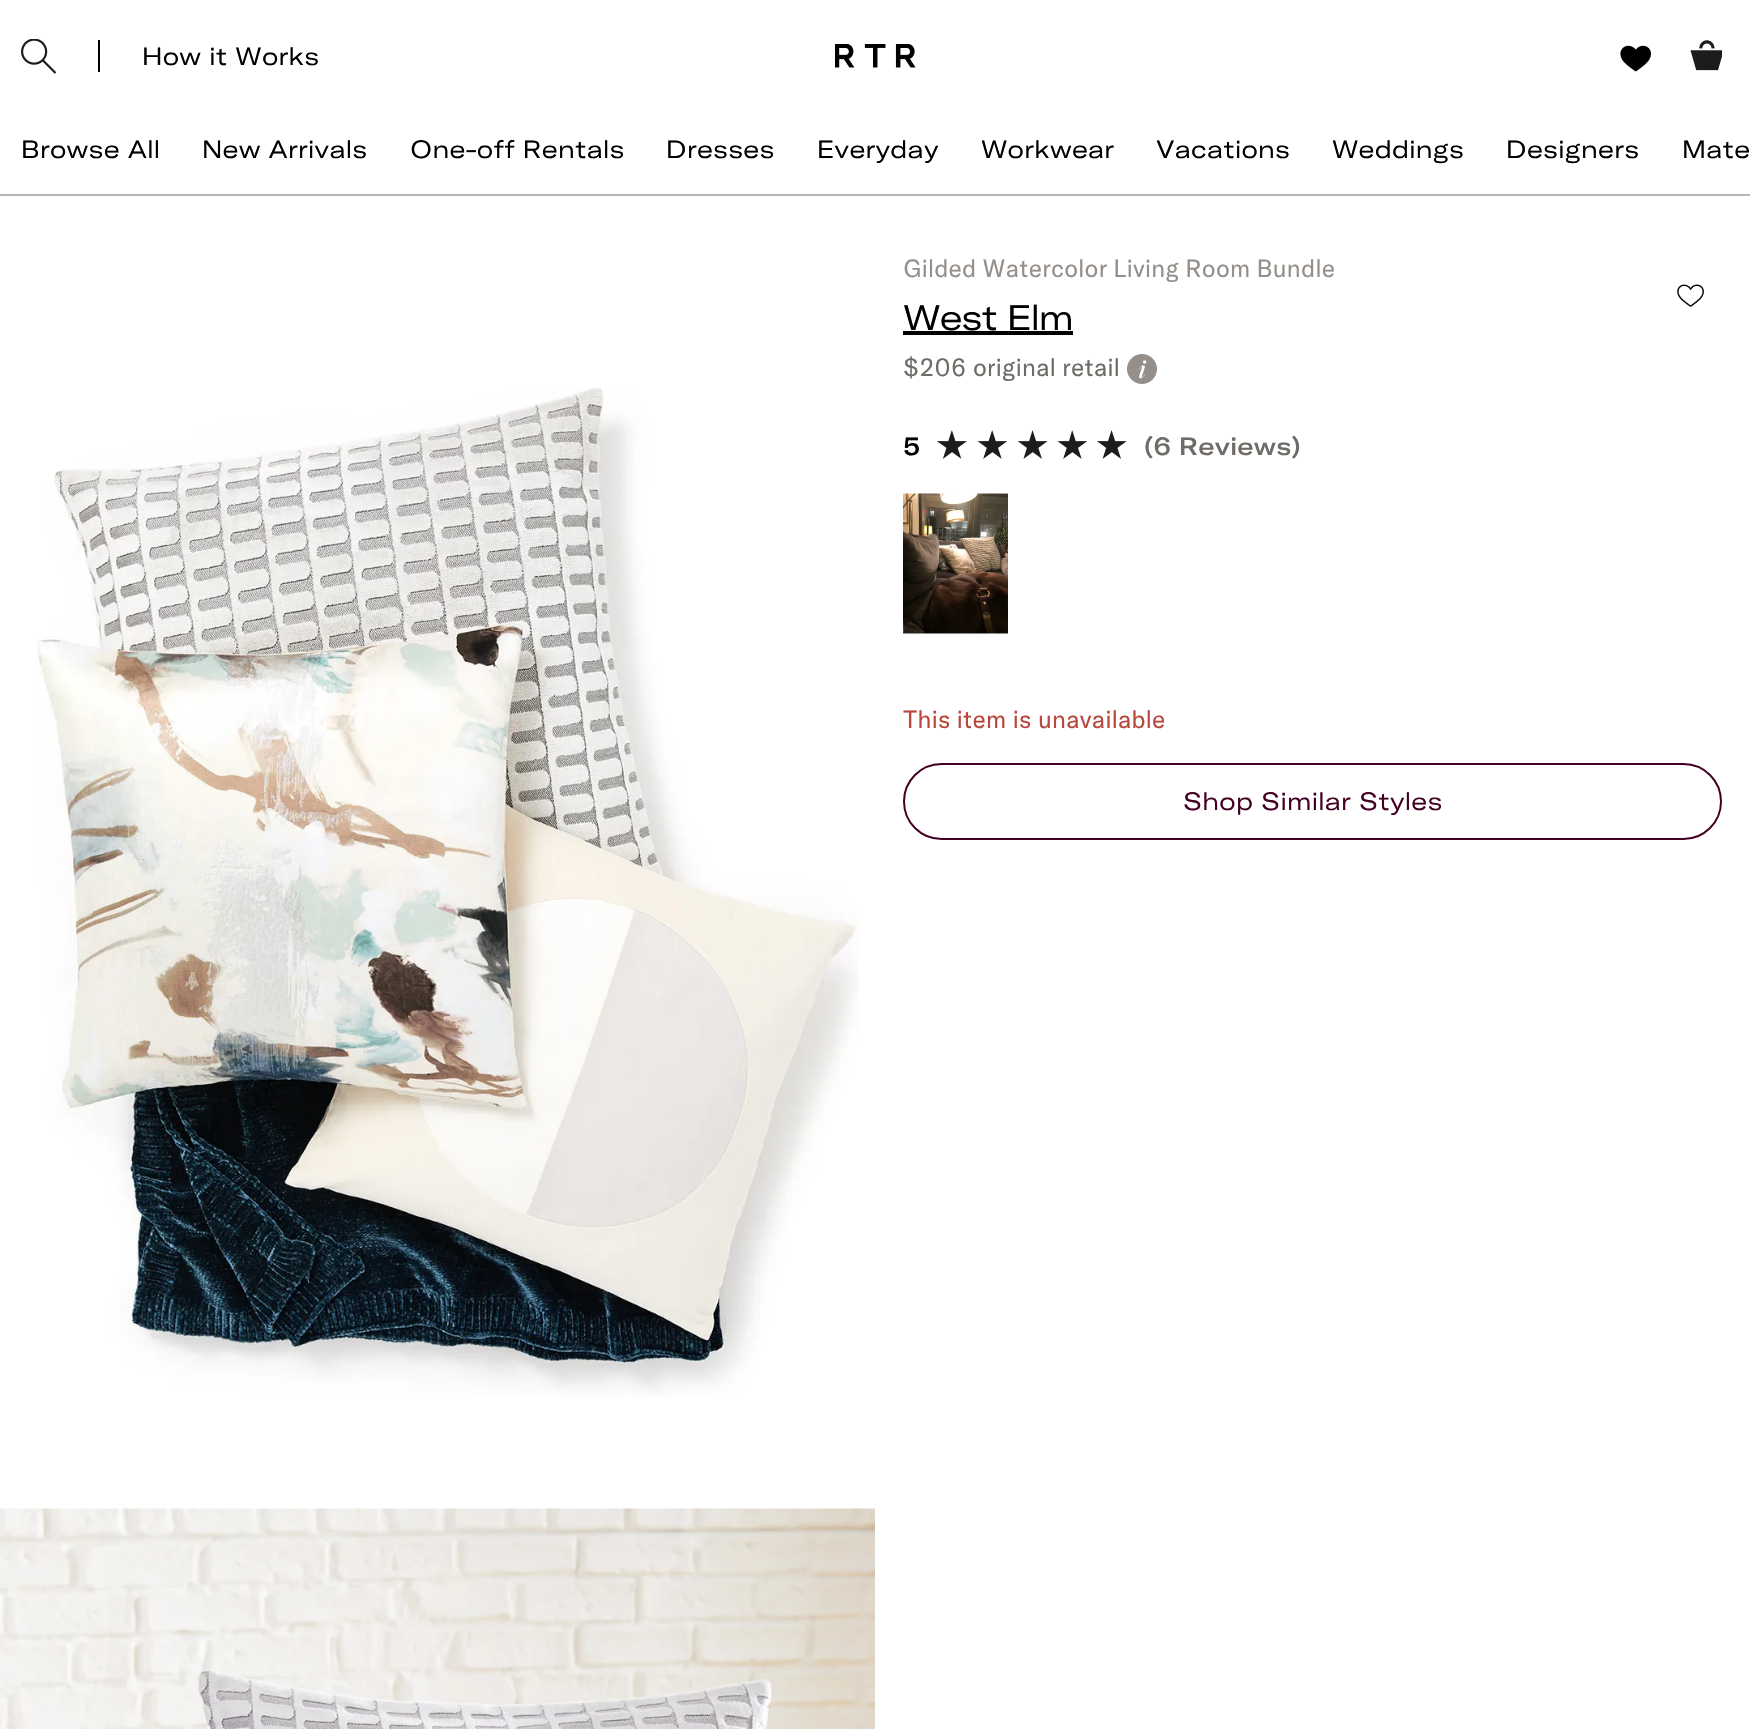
void draw(SkCanvas* c) {
SkPaint p;
p.setAntiAlias(true);
auto F=[&](const char* family, int weight, float size, bool italic = false){SkFontStyle style(weight, SkFontStyle::kNormal_Width,italic ? SkFontStyle::kItalic_Slant : SkFontStyle::kUpright_Slant);SkFont result(fontMgr->matchFamilyStyle(family, style), size);result.setSubpixel(true);return result;};
auto L=[&](const char* s, float x, float y, const SkFont& font, const SkPaint& ink, float letter, float word){std::vector<SkGlyphID> glyphs(font.countText(s, strlen(s), SkTextEncoding::kUTF8));std::vector<float> xs(glyphs.size());font.textToGlyphs(s, strlen(s), SkTextEncoding::kUTF8, glyphs);font.getXPos(glyphs, xs, x);float extra = 0;for (size_t i = 0; i < glyphs.size(); i++) {xs[i] += extra;extra += letter + word * (glyphs[i] == font.unicharToGlyph(' '));}c->drawTextBlob(SkTextBlob::MakeFromPosHGlyphs(glyphs, xs, y, font), 0, 0, ink);};
auto R=[&](float x, float y, float w, float h){c->drawRect(SkRect::MakeXYWH(x, y, w, h), p);};
auto I=[&](const char* path, float x, float y, float w, float h){auto image = SkImages::DeferredFromEncodedData(SkData::MakeFromFileName(path));c->drawImageRect(image, SkRect::MakeXYWH(x, y, w, h), SkSamplingOptions());};
c->clear(0xffffffff);
p.setColor(0xffb7b5b3);
R(0,194,1750,2);
I("1.png",21,39,35,35);
p.setColor(0xff000000);
R(98,40,2,32);
auto f1 = F("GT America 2",400,24.5);
L("How it Works",142,65,f1,p,.25,0);
I("2.png",835,44,81,24);
I("3.png",1620,45,31,27);
I("4.png",1690,40,32,31);
L("Browse All",21,158,f1,p,.25,0);
L("New Arrivals",202,158,f1,p,.25,0);
L("One-off Rentals",410,158,f1,p,.25,0);
L("Dresses",666,158,f1,p,.25,0);
L("Everyday",817,158,f1,p,.25,0);
L("Workwear",981,158,f1,p,.25,0);
L("Vacations",1156,158,f1,p,.25,0);
L("Weddings",1332,158,f1,p,.25,0);
L("Designers",1506,158,f1,p,.25,0);
L("Mate",1682,158,f1,p,.25,0);
I("5.png",36,387,823,1010);
I("6.png",0,1508,875,221);
auto f2 = F("GT America",400,24.5);
p.setColor(0xff948f8a);
L("Gilded Watercolor Living Room Bundle",903,277,f2,p,.25,0);
I("7.png",1677,284,27,23);
auto f3 = F("GT America 2",400,35);
p.setColor(0xff000000);
L("West Elm",903,330,f3,p,-1,0);
R(903,331,170,4);
p.setColor(0xff6f6b67);
L("$206",903,376,f2,p,.25,0);
L("original retail",973,376,f2,p,.25,0);
I("8.png",1127,354,30,30);
auto f4 = F("GT America",500,24.5);
p.setColor(0xff000000);
L("5",903,455,f4,p,.25,0);
I("9.png",937,430,190,29);
p.setColor(0xff6f6b67);
L("(6 Reviews)",1144,455,f4,p,.25,0);
I("10.png",903,493,105,141);
p.setColor(0xffba473b);
L("This item is unavailable",903,728,f2,p,.25,0);
p.setStroke(true);
p.setStrokeWidth(2);
p.setColor(0xff420022);
c->drawRoundRect(SkRect::MakeXYWH(904,764,817,75),37.5,37.5,p);
p.setStroke(false);
L("Shop Similar Styles",1183,810,f1,p,.25,0);
}
